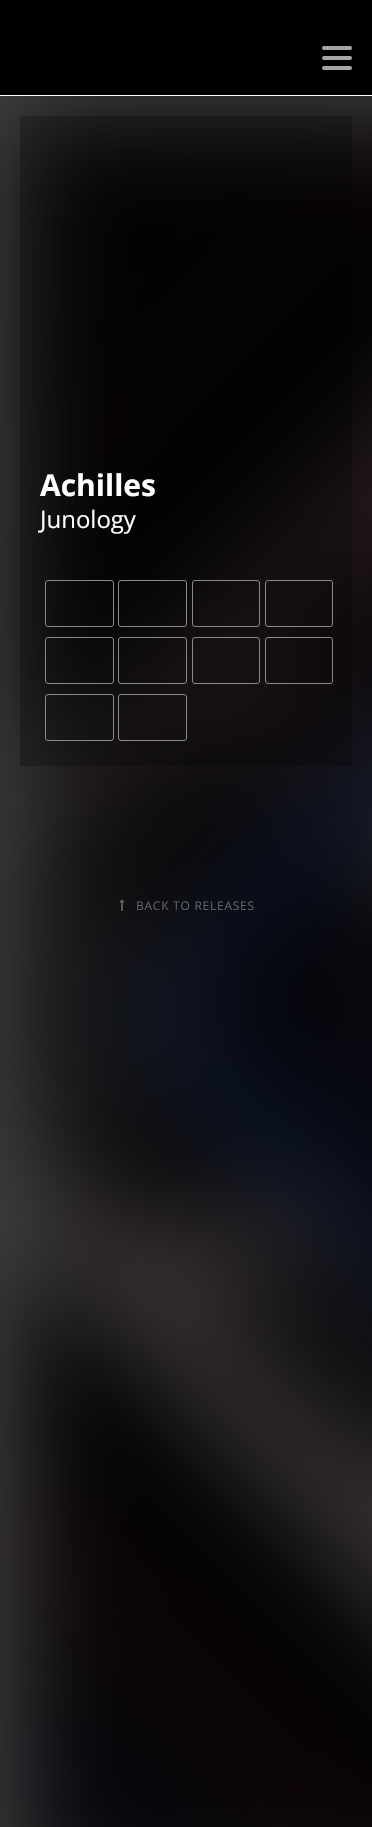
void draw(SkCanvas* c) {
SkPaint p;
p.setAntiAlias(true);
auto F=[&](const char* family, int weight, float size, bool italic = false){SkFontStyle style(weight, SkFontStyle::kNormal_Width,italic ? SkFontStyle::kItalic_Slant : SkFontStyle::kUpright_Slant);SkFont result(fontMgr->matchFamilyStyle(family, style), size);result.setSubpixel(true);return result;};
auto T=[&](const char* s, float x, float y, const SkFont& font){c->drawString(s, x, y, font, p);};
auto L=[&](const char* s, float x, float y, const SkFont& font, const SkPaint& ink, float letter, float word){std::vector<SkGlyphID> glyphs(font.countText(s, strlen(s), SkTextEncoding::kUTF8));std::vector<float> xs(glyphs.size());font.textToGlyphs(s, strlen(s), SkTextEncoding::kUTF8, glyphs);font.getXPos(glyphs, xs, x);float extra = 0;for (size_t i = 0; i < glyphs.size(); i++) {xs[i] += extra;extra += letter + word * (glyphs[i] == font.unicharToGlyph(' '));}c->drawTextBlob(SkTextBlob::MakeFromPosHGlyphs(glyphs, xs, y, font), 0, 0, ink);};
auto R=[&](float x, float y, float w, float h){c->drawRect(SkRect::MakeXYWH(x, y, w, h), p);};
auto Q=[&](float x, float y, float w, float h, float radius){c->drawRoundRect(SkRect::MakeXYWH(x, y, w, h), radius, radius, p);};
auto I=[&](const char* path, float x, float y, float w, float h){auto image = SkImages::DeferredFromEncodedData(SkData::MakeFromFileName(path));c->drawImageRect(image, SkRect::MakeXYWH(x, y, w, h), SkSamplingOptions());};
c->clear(0xff000000);
p.setColor(0xffffffff);
R(0,95,372,1);
p.setColor(0xffa6a6a6);
Q(322,46,30,4,2);
Q(322,56,30,4,2);
Q(322,66,30,4,2);
I("1.png",0,96,372,1731);
p.setColor(0x40000000);
R(20,116,332,650);
auto f1 = F("Open Sans",700,30);
p.setColor(0xffffffff);
T("Achilles",40,496,f1);
auto f2 = F("Open Sans",400,24);
T("Junology",40,528,f2);
p.setStroke(true);
p.setStrokeWidth(1);
p.setColor(0xff898989);
c->drawRoundRect(SkRect::MakeXYWH(45.5,580.5,68,46),2.5,2.5,p);
c->drawRoundRect(SkRect::MakeXYWH(118.5,580.5,68,46),2.5,2.5,p);
c->drawRoundRect(SkRect::MakeXYWH(192.5,580.5,67,46),2.5,2.5,p);
c->drawRoundRect(SkRect::MakeXYWH(265.5,580.5,67,46),2.5,2.5,p);
c->drawRoundRect(SkRect::MakeXYWH(45.5,637.5,68,46),2.5,2.5,p);
c->drawRoundRect(SkRect::MakeXYWH(118.5,637.5,68,46),2.5,2.5,p);
c->drawRoundRect(SkRect::MakeXYWH(192.5,637.5,67,46),2.5,2.5,p);
c->drawRoundRect(SkRect::MakeXYWH(265.5,637.5,67,46),2.5,2.5,p);
c->drawRoundRect(SkRect::MakeXYWH(45.5,694.5,68,46),2.5,2.5,p);
c->drawRoundRect(SkRect::MakeXYWH(118.5,694.5,68,46),2.5,2.5,p);
I("2.png",119,899,6,12);
auto f3 = F("Open Sans",400,12);
p.setStroke(false);
p.setColor(0xff616268);
L("BACK TO RELEASES",136,910,f3,p,.75,0);
}
